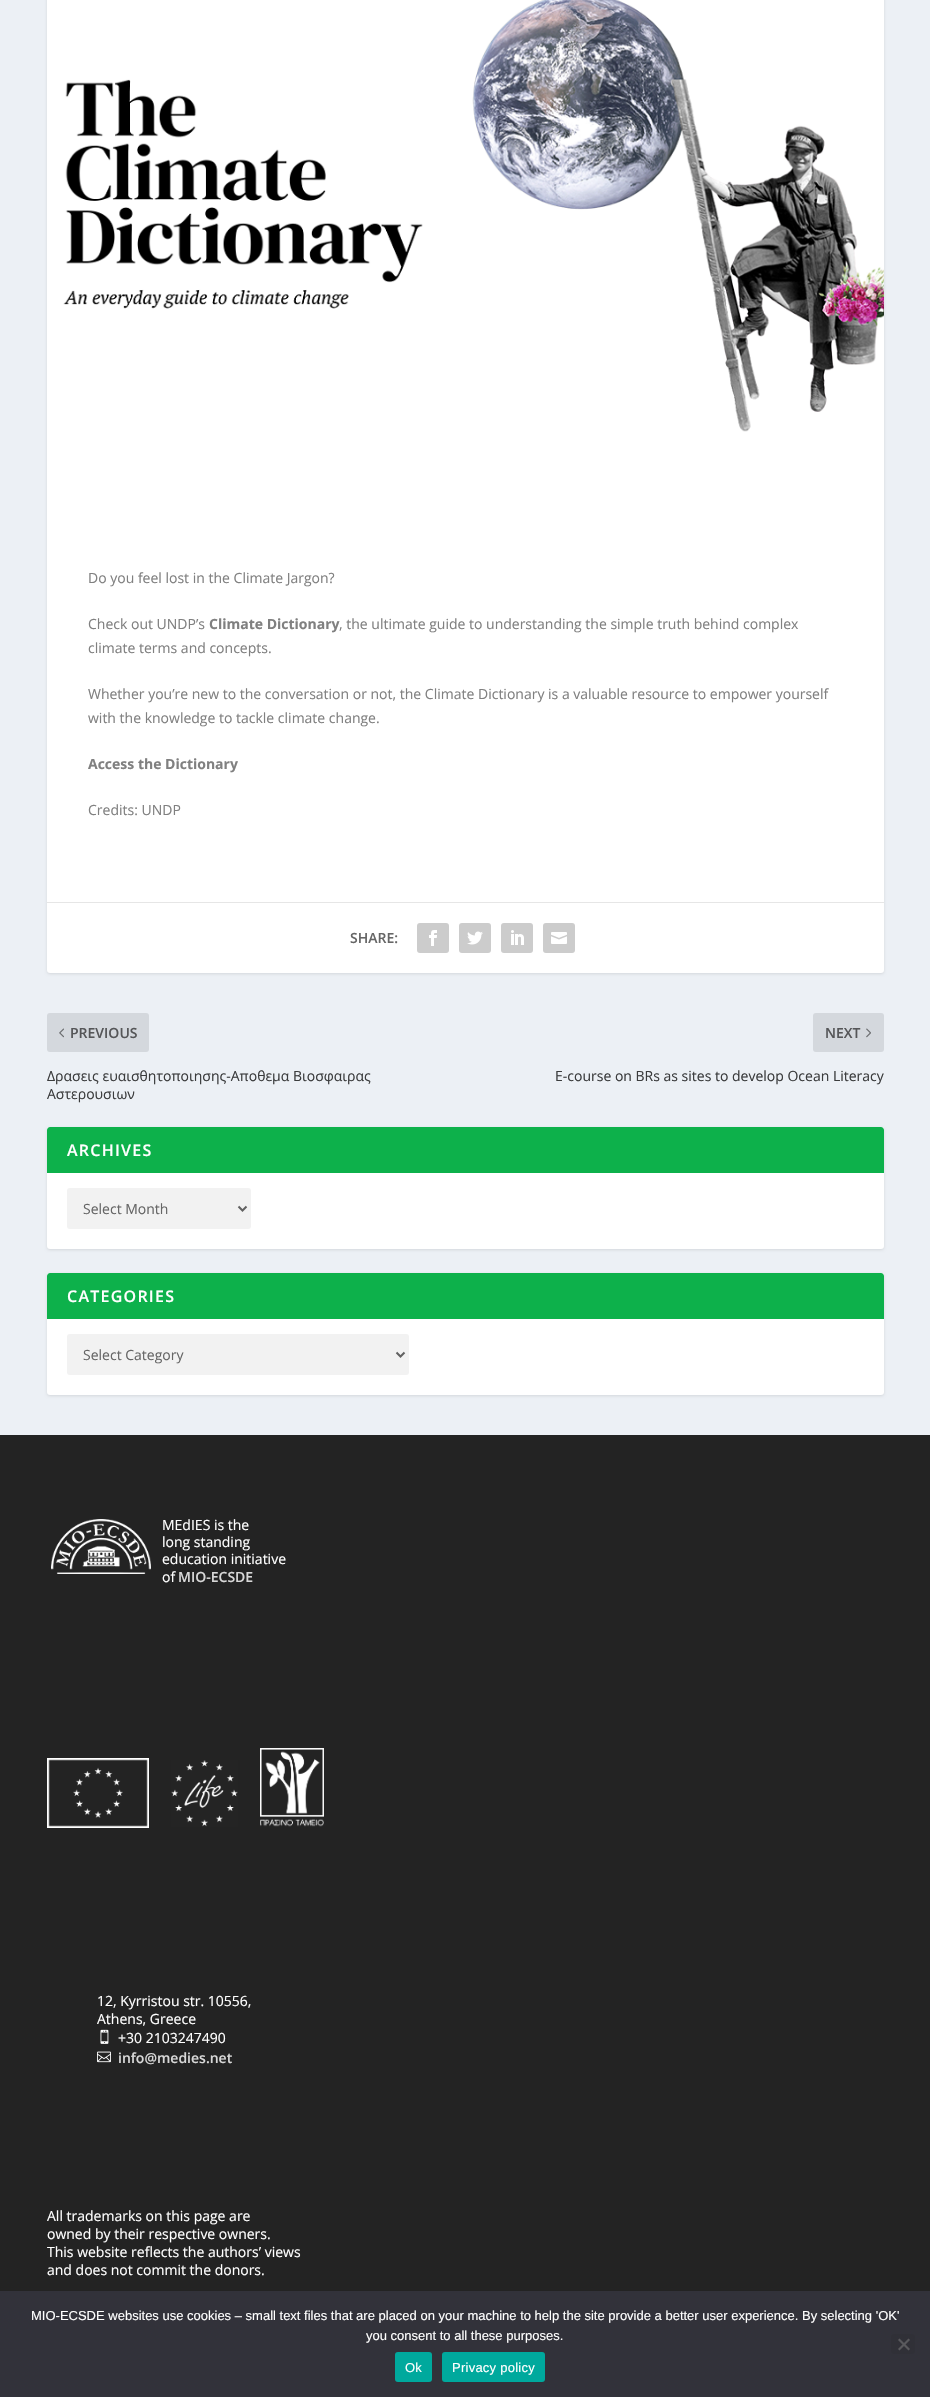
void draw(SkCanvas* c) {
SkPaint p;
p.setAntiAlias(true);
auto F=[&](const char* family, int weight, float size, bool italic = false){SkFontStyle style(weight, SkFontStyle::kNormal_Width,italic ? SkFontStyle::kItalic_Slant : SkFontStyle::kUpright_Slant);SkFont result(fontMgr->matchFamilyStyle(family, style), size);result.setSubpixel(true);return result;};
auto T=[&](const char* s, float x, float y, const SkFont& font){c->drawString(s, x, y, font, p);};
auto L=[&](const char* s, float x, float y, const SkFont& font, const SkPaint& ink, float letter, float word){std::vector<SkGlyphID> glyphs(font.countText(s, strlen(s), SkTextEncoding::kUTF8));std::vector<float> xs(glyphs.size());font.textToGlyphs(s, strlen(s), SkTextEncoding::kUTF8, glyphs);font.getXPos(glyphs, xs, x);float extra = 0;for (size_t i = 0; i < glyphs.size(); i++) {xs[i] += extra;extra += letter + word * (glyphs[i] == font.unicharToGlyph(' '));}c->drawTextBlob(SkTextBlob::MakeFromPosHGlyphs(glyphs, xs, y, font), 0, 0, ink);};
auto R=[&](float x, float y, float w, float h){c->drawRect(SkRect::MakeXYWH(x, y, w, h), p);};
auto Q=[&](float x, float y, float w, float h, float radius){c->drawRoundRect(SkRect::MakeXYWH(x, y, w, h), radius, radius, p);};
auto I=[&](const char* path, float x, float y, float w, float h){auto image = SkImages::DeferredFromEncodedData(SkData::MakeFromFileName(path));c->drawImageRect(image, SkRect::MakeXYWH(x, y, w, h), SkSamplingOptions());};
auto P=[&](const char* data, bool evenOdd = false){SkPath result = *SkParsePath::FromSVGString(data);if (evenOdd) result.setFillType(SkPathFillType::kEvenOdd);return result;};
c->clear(0xffecf0f5);
p.setColor(0x1a000000);
p.setMaskFilter(SkMaskFilter::MakeBlur(kNormal_SkBlurStyle, 1.5));
c->drawRoundRect(SkRect::MakeXYWH(47,-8,837,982),3,3,p);
p.setMaskFilter(nullptr);
p.setColor(0xffffffff);
Q(47,-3,837,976,3);
I("1.png",63,0,821,432);
auto f1 = F("Open Sans",400,14);
p.setColor(0xff808080);
T("Do you feel lost in the Climate Jargon?",88,583,f1);
T("Check out UNDP’s",88,629,f1);
auto f2 = F("Open Sans",700,14);
T("Climate Dictionary",209,629,f2);
T(", the ultimate guide to understanding the simple truth behind complex",339,629,f1);
T("climate terms and concepts.",88,653,f1);
T("Whether you’re new to the conversation or not, the Climate Dictionary is a valuable resource to empower yourself",88,699,f1);
T("with the knowledge to tackle climate change.",88,723,f1);
T("Access the Dictionary",88,769,f2);
T("Credits: UNDP",88,815,f1);
p.setColor(0xffe6e6e6);
R(47,902,837,1);
auto f3 = F("Open Sans",600,14);
p.setColor(0xff666666);
T("SHARE:",350,943,f3);
p.setColor(0xffcccccc);
Q(417,923,32,30,3);
I("2.png",429,930,8,16);
Q(459,923,32,30,3);
I("3.png",467,931,16,14);
Q(501,923,32,30,3);
I("4.png",511,930,13,15);
Q(543,923,32,30,3);
I("5.png",551,932,16,12);
p.setColor(0xffd4d8dd);
Q(47,1013,102,39,3);
I("6.png",59,1028,5,10);
p.setColor(0xff555658);
T("PREVIOUS",70,1038,f3);
p.setColor(0xff3b3c3d);
T("Δρασεις ευαισθητοποιησης-Αποθεμα Βιoσφαιρας",47,1081,f1);
T("Αστερουσιων",47,1099,f1);
p.setColor(0xffd4d8dd);
Q(813,1013,71,39,3);
p.setColor(0xff555658);
T("NEXT",825,1038,f3);
I("7.png",866,1028,5,10);
p.setColor(0xff3b3c3d);
T("E-course on BRs as sites to develop Ocean Literacy",555,1081,f1);
p.setColor(0x1a000000);
p.setMaskFilter(SkMaskFilter::MakeBlur(kNormal_SkBlurStyle, 1.5));
c->drawRoundRect(SkRect::MakeXYWH(47,1128,837,122),3,3,p);
p.setMaskFilter(nullptr);
p.setColor(0xffffffff);
Q(47,1127,837,122,3);
p.setColor(0xff0db14b);
c->drawPath(P("M50 1127h831c1.5 0 3 1.5 3 3v43h-837v-43c0-1.5 1.5-3 3-3z"),p);
auto f4 = F("Open Sans",600,16);
p.setColor(0xffffffff);
L("ARCHIVES",67,1156,f4,p,1.25,0);
p.setColor(0xfff2f2f2);
Q(67,1188,184,41,3);
p.setStroke(true);
p.setStrokeWidth(2);
p.setColor(0xff616161);
c->drawPath(P("M238.5 1206.5l4 4l4-4"),p);
p.setStroke(false);
p.setColor(0xff666666);
T("Select Month",83,1214,f1);
p.setColor(0x1a000000);
p.setMaskFilter(SkMaskFilter::MakeBlur(kNormal_SkBlurStyle, 1.5));
c->drawRoundRect(SkRect::MakeXYWH(47,1274,837,122),3,3,p);
p.setMaskFilter(nullptr);
p.setColor(0xffffffff);
Q(47,1273,837,122,3);
p.setColor(0xff0db14b);
c->drawPath(P("M50 1273h831c1.5 0 3 1.5 3 3v43h-837v-43c0-1.5 1.5-3 3-3z"),p);
p.setColor(0xffffffff);
L("CATEGORIES",67,1302,f4,p,1.25,0);
p.setColor(0xfff2f2f2);
Q(67,1334,342,41,3);
p.setStroke(true);
p.setColor(0xff616161);
c->drawPath(P("M396.5 1352.5l4 4l4-4"),p);
p.setStroke(false);
p.setColor(0xff666666);
T("Select Category",83,1360,f1);
p.setColor(0xff232323);
R(0,1435,930,856);
I("8.png",51,1519,100,55);
p.setColor(0xffffffff);
T("MEdIES is the",162,1530,f1);
T("long standing",162,1547,f1);
T("education initiative",162,1564,f1);
T("of",162,1582,f1);
p.setColor(0xffd8d8d8);
T("MIO-ECSDE",178,1582,f3);
I("9.png",47,1758,102,70);
I("10.png",171,1760,67,67);
I("11.png",260,1748,64,79);
p.setColor(0xffffffff);
T("12, Kyrristou str. 10556,",97,2006,f1);
T("Athens, Greece",97,2024,f1);
I("12.png",100,2029,9,15);
T("+30 2103247490",118,2043,f1);
I("13.png",97,2051,14,12);
p.setColor(0xffd8d8d8);
T("info@medies.net",118,2063,f3);
p.setColor(0xffffffff);
T("All trademarks on this page are",47,2221,f1);
T("owned by their respective owners.",47,2239,f1);
T("This website reflects the authors’ views",47,2257,f1);
T("and does not commit the donors.",47,2275,f1);
p.setColor(0xff32323a);
R(0,2291,930,106);
auto f5 = F("Liberation Sans",400,13);
p.setColor(0xffffffff);
T("MIO-ECSDE websites use cookies – small text files that are placed on your machine to help the site provide a better user experience. By selecting 'OK'",31,2320,f5);
T("you consent to all these purposes.",366,2340,f5);
p.setColor(0xff303037);
Q(891,2334,24,20,3);
p.setColor(0xff59595d);
c->drawPath(P("M908.5 2338.5l1.5 1.5l-10.5 10.5l-1.5-1.5z"),p);
c->drawPath(P("M898 2340l1.5-1.5l10.5 10.5l-1.5 1.5z"),p);
p.setColor(0xff00a99d);
Q(395,2352,37,30,3);
p.setColor(0xffffffff);
L("Ok",405,2372,f5,p,.25,0);
p.setColor(0xff00a99d);
Q(442,2352,103,30,3);
p.setColor(0xffffffff);
L("Privacy policy",452,2372,f5,p,.25,0);
}
